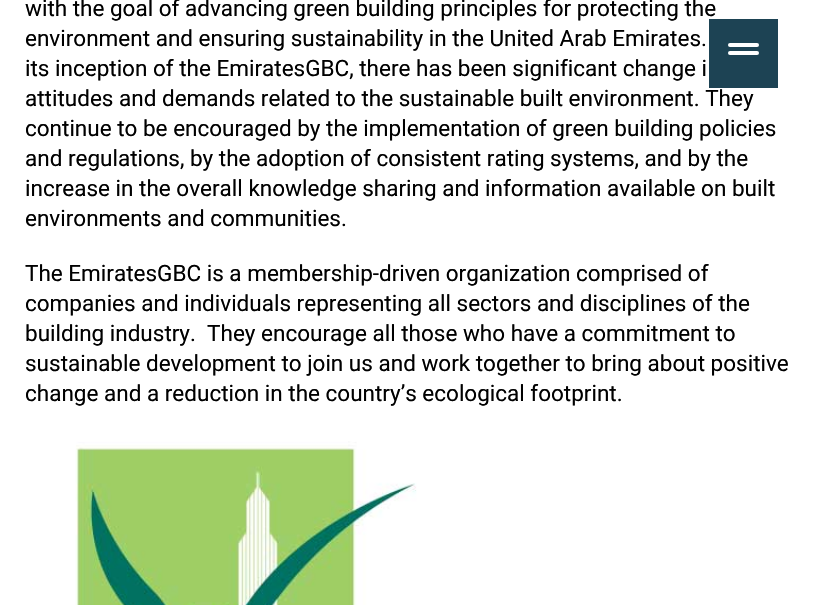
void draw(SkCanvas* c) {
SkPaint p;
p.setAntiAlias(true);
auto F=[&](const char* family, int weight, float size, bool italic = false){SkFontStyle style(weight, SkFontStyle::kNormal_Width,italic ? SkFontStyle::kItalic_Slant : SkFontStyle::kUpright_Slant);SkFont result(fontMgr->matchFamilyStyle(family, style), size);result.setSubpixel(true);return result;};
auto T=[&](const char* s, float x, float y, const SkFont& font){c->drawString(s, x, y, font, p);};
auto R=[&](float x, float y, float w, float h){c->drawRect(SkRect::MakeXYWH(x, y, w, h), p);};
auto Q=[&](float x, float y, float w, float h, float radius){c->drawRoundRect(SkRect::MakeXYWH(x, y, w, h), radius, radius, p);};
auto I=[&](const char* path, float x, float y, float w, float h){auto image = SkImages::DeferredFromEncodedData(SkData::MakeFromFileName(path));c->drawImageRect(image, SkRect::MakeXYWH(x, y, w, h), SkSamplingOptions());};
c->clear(0xffffffff);
auto f1 = F("Roboto",400,22.5);
p.setColor(0xff000000);
T("with the goal of advancing green building principles for protecting the",25,16,f1);
T("environment and ensuring sustainability in the United Arab Emirates.",25,46,f1);
T("its inception of the EmiratesGBC, there has been significant change i",25,76,f1);
T("attitudes and demands related to the sustainable built environment. They",25,106,f1);
T("continue to be encouraged by the implementation of green building policies",25,136,f1);
T("and regulations, by the adoption of consistent rating systems, and by the",25,166,f1);
T("increase in the overall knowledge sharing and information available on built",25,196,f1);
T("environments and communities.",25,226,f1);
T("The EmiratesGBC is a membership-driven organization comprised of",25,281,f1);
T("companies and individuals representing all sectors and disciplines of the",25,311,f1);
T("building industry.  They encourage all those who have a commitment to",25,341,f1);
T("sustainable development to join us and work together to bring about positive",25,371,f1);
T("change and a reduction in the country’s ecological footprint.",25,401,f1);
I("1.png",75,441,342,164);
p.setColor(0xff1d4354);
R(709,19,69,69);
p.setColor(0xffffffff);
Q(728,51,31,4,2);
Q(728,43,31,4,2);
}
